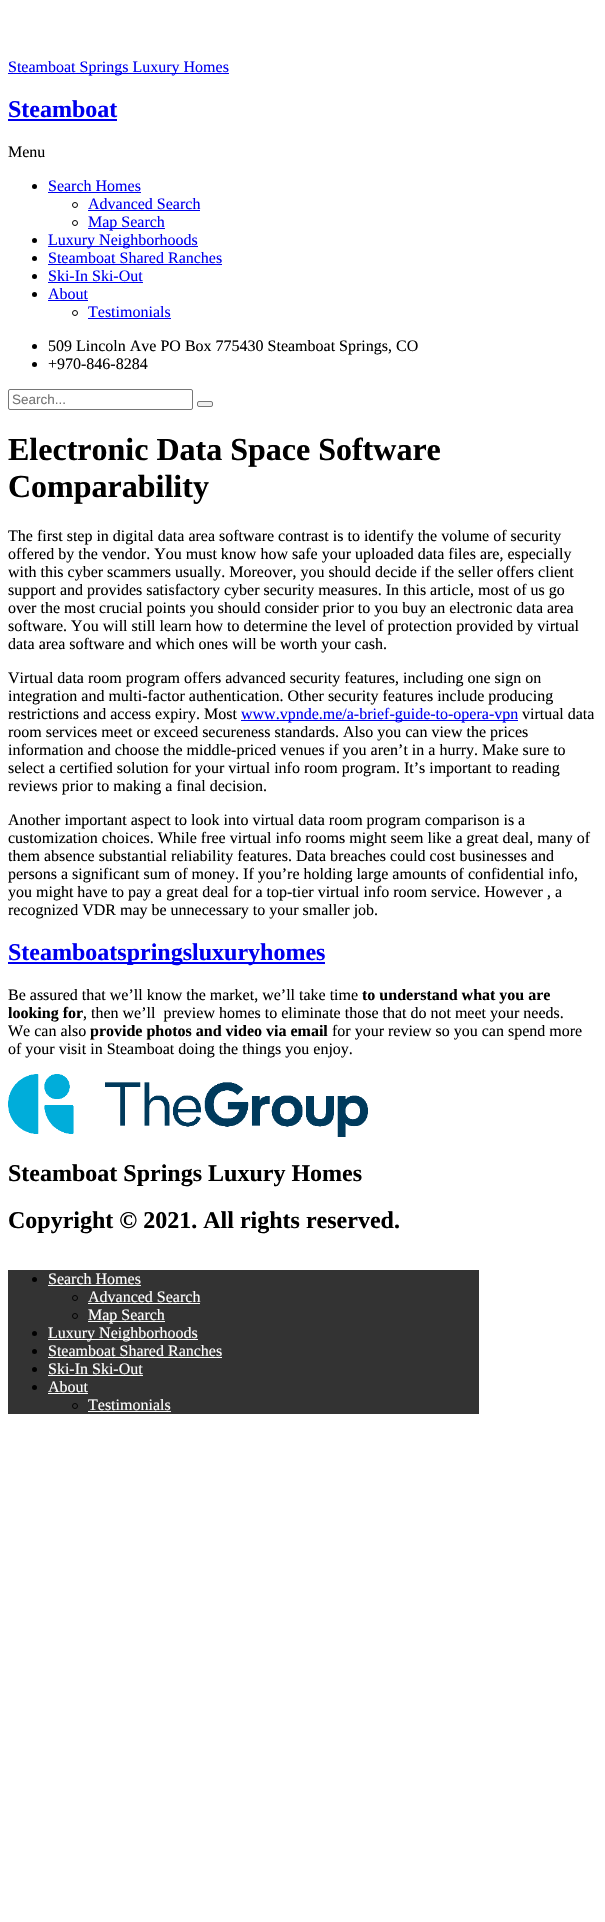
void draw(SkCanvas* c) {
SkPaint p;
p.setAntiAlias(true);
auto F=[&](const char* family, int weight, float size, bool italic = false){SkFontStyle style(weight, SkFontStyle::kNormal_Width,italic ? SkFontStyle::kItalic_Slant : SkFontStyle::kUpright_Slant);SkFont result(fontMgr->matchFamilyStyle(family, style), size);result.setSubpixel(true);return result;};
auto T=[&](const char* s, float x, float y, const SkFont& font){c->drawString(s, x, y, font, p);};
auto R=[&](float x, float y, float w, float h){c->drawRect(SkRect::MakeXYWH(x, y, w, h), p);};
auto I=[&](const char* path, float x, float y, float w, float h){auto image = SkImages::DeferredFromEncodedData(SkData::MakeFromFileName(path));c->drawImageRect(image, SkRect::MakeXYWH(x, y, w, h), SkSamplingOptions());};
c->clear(0xffffffff);
p.setColor(0xff0000ee);
R(8,73,221,1);
auto f1 = F("Liberation Serif",400,16);
T("Steamboat Springs Luxury Homes",8,72,f1);
auto f2 = F("Liberation Serif",700,24);
T("Steamboat",8,117,f2);
R(8,119,109,2);
p.setColor(0xff000000);
T("Menu",8,157,f1);
c->drawCircle(34.5,186.5,2.5,p);
p.setColor(0xff0000ee);
T("Search Homes",48,191,f1);
R(48,192,93,1);
p.setStroke(true);
p.setStrokeWidth(1);
p.setColor(0xff000000);
c->drawCircle(75,205,2.5,p);
p.setStroke(false);
p.setColor(0xff0000ee);
T("Advanced Search",88,209,f1);
R(88,210,112,1);
p.setStroke(true);
p.setColor(0xff000000);
c->drawCircle(75,223,2.5,p);
p.setStroke(false);
p.setColor(0xff0000ee);
R(88,228,77,1);
T("Map Search",88,227,f1);
p.setColor(0xff000000);
c->drawCircle(34.5,240.5,2.5,p);
p.setColor(0xff0000ee);
R(48,246,150,1);
T("Luxury Neighborhoods",48,245,f1);
p.setColor(0xff000000);
c->drawCircle(34.5,258.5,2.5,p);
p.setColor(0xff0000ee);
T("Steamboat Shared Ranches",48,263,f1);
R(48,264,174,1);
p.setColor(0xff000000);
c->drawCircle(34.5,276.5,2.5,p);
p.setColor(0xff0000ee);
T("Ski-In Ski-Out",48,281,f1);
R(48,282,95,1);
p.setColor(0xff000000);
c->drawCircle(34.5,294.5,2.5,p);
p.setColor(0xff0000ee);
T("About",48,299,f1);
R(48,300,40,1);
p.setStroke(true);
p.setColor(0xff000000);
c->drawCircle(75,313,2.5,p);
p.setStroke(false);
p.setColor(0xff0000ee);
T("Testimonials",88,317,f1);
R(88,318,83,1);
p.setColor(0xff000000);
c->drawCircle(34.5,346.5,2.5,p);
T("509 Lincoln Ave PO Box 775430 Steamboat Springs, CO",48,351,f1);
c->drawCircle(34.5,364.5,2.5,p);
T("+970-846-8284",48,369,f1);
p.setStroke(true);
p.setColor(0xff767676);
c->drawRoundRect(SkRect::MakeXYWH(8.5,389.5,184,20),1.5,1.5,p);
auto f3 = F("Liberation Sans",400,13.5);
p.setStroke(false);
p.setColor(0xff757575);
T("Search...",12,404,f3);
p.setColor(0xffefefef);
c->drawRoundRect(SkRect::MakeXYWH(197.5,401.5,15,5),1.5,1.5,p);
p.setStroke(true);
p.setColor(0xff767676);
c->drawRoundRect(SkRect::MakeXYWH(197.5,401.5,15,5),1.5,1.5,p);
auto f4 = F("Liberation Serif",700,32);
p.setStroke(false);
p.setColor(0xff000000);
T("Electronic Data Space Software",8,460,f4);
T("Comparability",8,497,f4);
T("The first step in digital data area software contrast is to identify the volume of security",8,541,f1);
T("offered by the vendor. You must know how safe your uploaded data files are, especially",8,559,f1);
T("with this cyber scammers usually. Moreover, you should decide if the seller offers client",8,577,f1);
T("support and provides satisfactory cyber security measures. In this article, most of us go",8,595,f1);
T("over the most crucial points you should consider prior to you buy an electronic data area",8,613,f1);
T("software. You will still learn how to determine the level of protection provided by virtual",8,631,f1);
T("data area software and which ones will be worth your cash.",8,649,f1);
T("Virtual data room program offers advanced security features, including one sign on",8,683,f1);
T("integration and multi-factor authentication. Other security features include producing",8,701,f1);
T("restrictions and access expiry. Most",8,719,f1);
p.setColor(0xff0000ee);
R(241,720,277,1);
T("www.vpnde.me/a-brief-guide-to-opera-vpn",241,719,f1);
p.setColor(0xff000000);
T("virtual data",522,719,f1);
T("room services meet or exceed secureness standards. Also you can view the prices",8,737,f1);
T("information and choose the middle-priced venues if you aren’t in a hurry. Make sure to",8,755,f1);
T("select a certified solution for your virtual info room program. It’s important to reading",8,773,f1);
T("reviews prior to making a final decision.",8,791,f1);
T("Another important aspect to look into virtual data room program comparison is a",8,825,f1);
T("customization choices. While free virtual info rooms might seem like a great deal, many of",8,843,f1);
T("them absence substantial reliability features. Data breaches could cost businesses and",8,861,f1);
T("persons a significant sum of money. If you’re holding large amounts of confidential info,",8,879,f1);
T("you might have to pay a great deal for a top-tier virtual info room service. However , a",8,897,f1);
T("recognized VDR may be unnecessary to your smaller job.",8,915,f1);
p.setColor(0xff0000ee);
R(8,962,317,2);
T("Steamboatspringsluxuryhomes",8,960,f2);
p.setColor(0xff000000);
T("Be assured that we’ll know the market, we’ll take time",8,1000,f1);
auto f5 = F("Liberation Serif",700,16);
T("to understand what you are",362,1000,f5);
T("looking for",8,1018,f5);
T(", then we’ll  preview homes to eliminate those that do not meet your needs.",83,1018,f1);
T("We can also",8,1036,f1);
T("provide photos and video via email",90,1036,f5);
T("for your review so you can spend more",332,1036,f1);
T("of your visit in Steamboat doing the things you enjoy.",8,1054,f1);
I("1.png",8,1074,360,63);
T("Steamboat Springs Luxury Homes",8,1181,f2);
T("Copyright © 2021. All rights reserved.",8,1228,f2);
p.setColor(0xff333333);
R(8,1270,471,144);
p.setColor(0xff000000);
c->drawCircle(34.5,1279.5,2.5,p);
p.setColor(0xffffffff);
T("Search Homes",48,1284,f1);
R(48,1285,93,1);
p.setStroke(true);
p.setColor(0xff000000);
c->drawCircle(75,1298,2.5,p);
p.setStroke(false);
p.setColor(0xffffffff);
T("Advanced Search",88,1302,f1);
R(88,1303,112,1);
p.setStroke(true);
p.setColor(0xff000000);
c->drawCircle(75,1316,2.5,p);
p.setStroke(false);
p.setColor(0xffffffff);
R(88,1321,77,1);
T("Map Search",88,1320,f1);
p.setColor(0xff000000);
c->drawCircle(34.5,1333.5,2.5,p);
p.setColor(0xffffffff);
R(48,1339,150,1);
T("Luxury Neighborhoods",48,1338,f1);
p.setColor(0xff000000);
c->drawCircle(34.5,1351.5,2.5,p);
p.setColor(0xffffffff);
T("Steamboat Shared Ranches",48,1356,f1);
R(48,1357,174,1);
p.setColor(0xff000000);
c->drawCircle(34.5,1369.5,2.5,p);
p.setColor(0xffffffff);
T("Ski-In Ski-Out",48,1374,f1);
R(48,1375,95,1);
p.setColor(0xff000000);
c->drawCircle(34.5,1387.5,2.5,p);
p.setColor(0xffffffff);
T("About",48,1392,f1);
R(48,1393,40,1);
p.setStroke(true);
p.setColor(0xff000000);
c->drawCircle(75,1406,2.5,p);
p.setStroke(false);
p.setColor(0xffffffff);
T("Testimonials",88,1410,f1);
R(88,1411,83,1);
}
